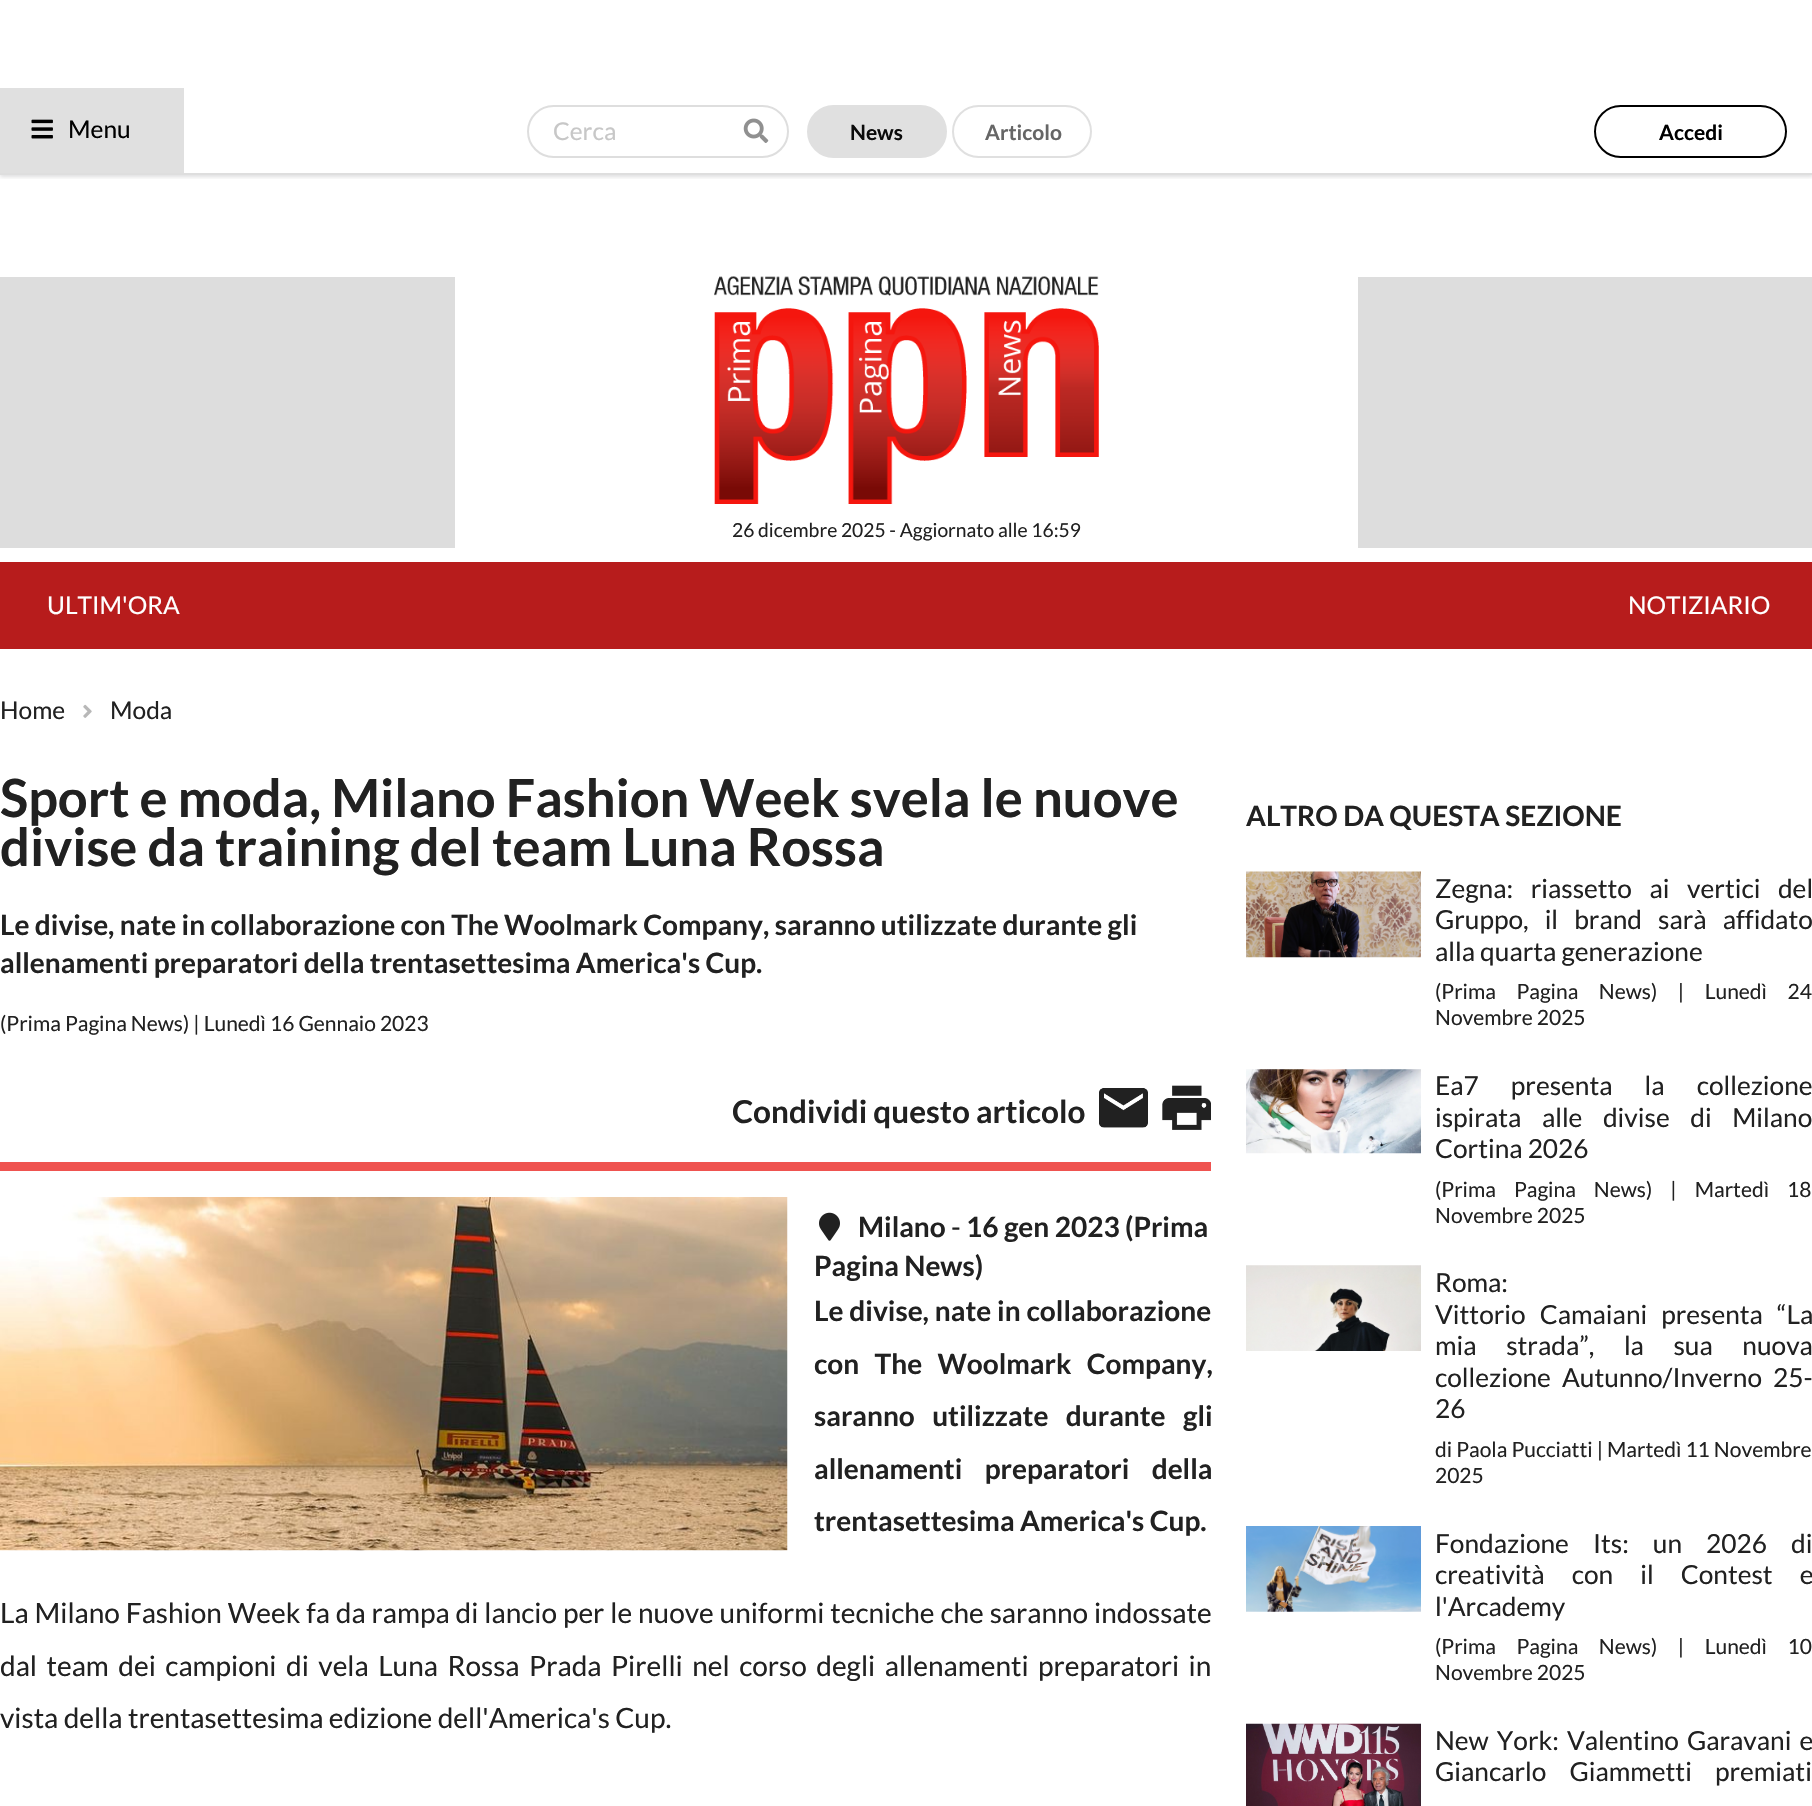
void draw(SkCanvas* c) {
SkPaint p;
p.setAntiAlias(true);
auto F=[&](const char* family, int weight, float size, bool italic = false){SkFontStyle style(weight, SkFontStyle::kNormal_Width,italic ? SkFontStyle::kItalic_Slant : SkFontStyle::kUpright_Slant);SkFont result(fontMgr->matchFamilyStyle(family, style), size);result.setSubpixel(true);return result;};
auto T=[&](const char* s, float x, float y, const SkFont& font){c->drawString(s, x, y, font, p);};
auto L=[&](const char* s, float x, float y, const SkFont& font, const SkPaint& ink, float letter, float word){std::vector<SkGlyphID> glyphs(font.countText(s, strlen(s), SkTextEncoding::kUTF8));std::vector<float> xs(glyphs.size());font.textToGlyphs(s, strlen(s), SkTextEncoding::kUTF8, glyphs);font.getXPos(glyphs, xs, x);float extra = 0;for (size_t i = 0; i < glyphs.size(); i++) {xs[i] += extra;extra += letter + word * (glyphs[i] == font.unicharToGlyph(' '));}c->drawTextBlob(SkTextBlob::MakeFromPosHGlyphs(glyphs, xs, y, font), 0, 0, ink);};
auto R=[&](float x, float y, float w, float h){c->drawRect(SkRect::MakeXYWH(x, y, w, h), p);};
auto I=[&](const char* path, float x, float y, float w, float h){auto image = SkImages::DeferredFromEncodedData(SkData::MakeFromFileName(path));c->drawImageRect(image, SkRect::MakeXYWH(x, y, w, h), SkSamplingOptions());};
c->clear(0xffffffff);
c->save();
c->clipRect(SkRect::MakeXYWH(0,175,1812,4));
p.setColor(0x26222426);
p.setMaskFilter(SkMaskFilter::MakeBlur(kNormal_SkBlurStyle, 2));
c->drawRect(SkRect::MakeXYWH(0,89,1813,88),p);
p.setMaskFilter(nullptr);
c->restore();
p.setColor(0xffdedede);
R(0,173,1812,2);
p.setColor(0xffe0e0e0);
R(0,88,184,85);
I("1.png",31,119,22,20);
auto f1 = F("Lato",400,24.5);
p.setColor(0xff000000);
T("Menu",68,138,f1);
p.setStroke(true);
p.setStrokeWidth(2);
p.setColor(0xffdedede);
c->drawRoundRect(SkRect::MakeXYWH(528,106,260,51),25.5,25.5,p);
p.setStroke(false);
p.setColor(0xffc7c7c7);
T("Cerca",553,140,f1);
I("2.png",743,118,26,25);
p.setColor(0xffe0e0e0);
c->drawRoundRect(SkRect::MakeXYWH(808,106,138,51),25.5,25.5,p);
p.setStroke(true);
c->drawRoundRect(SkRect::MakeXYWH(808,106,138,51),25.5,25.5,p);
auto f2 = F("Lato",700,21);
p.setStroke(false);
p.setColor(0xff0b0b0b);
T("News",850,140,f2);
p.setStroke(true);
p.setColor(0xffe0e0e0);
c->drawRoundRect(SkRect::MakeXYWH(953,106,138,51),25.5,25.5,p);
p.setStroke(false);
p.setColor(0xff666666);
T("Articolo",985,140,f2);
p.setStroke(true);
p.setColor(0xff000000);
c->drawRoundRect(SkRect::MakeXYWH(1595,106,191,51),25.5,25.5,p);
p.setStroke(false);
T("Accedi",1659,140,f2);
p.setColor(0xffdddddd);
R(0,277,455,271);
I("3.png",714,276,385,228);
auto f3 = F("Lato",400,19.25);
p.setColor(0xff212121);
T("26 dicembre 2025 - Aggiornato alle 16:59",732,537,f3);
p.setColor(0xffdddddd);
R(1358,277,454,271);
p.setColor(0xffb71c1c);
R(0,562,1812,87);
p.setColor(0xffffffff);
T("ULTIM'ORA",47,614,f1);
T("NOTIZIARIO",1628,614,f1);
p.setColor(0xff212121);
T("Home",0,719,f1);
I("4.png",83,704,9,14);
T("Moda",110,719,f1);
auto f4 = F("Lato",700,52.5);
T("Sport e moda, Milano Fashion Week svela le nuove",0,817,f4);
T("divise da training del team Luna Rossa",0,866,f4);
auto f5 = F("Lato",700,28);
T("Le divise, nate in collaborazione con The Woolmark Company, saranno utilizzate durante gli",0,935,f5);
T("allenamenti preparatori della trentasettesima America's Cup.",0,973,f5);
auto f6 = F("Lato",400,21);
T("(Prima Pagina News) | Lunedì 16 Gennaio 2023",0,1031,f6);
auto f7 = F("Lato",700,31.5);
T("Condividi questo articolo",732,1123,f7);
I("5.png",1099,1088,49,40);
I("6.png",1162,1085,49,45);
p.setColor(0xffef5350);
R(0,1162,1211,9);
I("7.png",0,1197,788,354);
I("8.png",819,1212,21,29);
p.setColor(0xff212121);
T("Milano",858,1237,f5);
auto f8 = F("Lato",400,28);
T("-",951,1237,f8);
T("16 gen 2023 (Prima",966,1237,f5);
T("Pagina News)",814,1276,f5);
L("Le divise, nate in collaborazione",814,1321,f5,p,0,.5);
L("con The Woolmark Company,",814,1374,f5,p,0,10);
L("saranno utilizzate durante gli",814,1426,f5,p,0,12);
L("allenamenti preparatori della",814,1479,f5,p,0,17);
T("trentasettesima America's Cup.",814,1531,f5);
L("La Milano Fashion Week fa da rampa di lancio per le nuove uniformi tecniche che saranno indossate",0,1623,f8,p,0,.5);
L("dal team dei campioni di vela Luna Rossa Prada Pirelli nel corso degli allenamenti preparatori in",0,1676,f8,p,0,4.1);
T("vista della trentasettesima edizione dell'America's Cup.",0,1728,f8);
T("ALTRO DA QUESTA SEZIONE",1246,826,f5);
I("9.png",1246,871,175,87);
auto f9 = F("Lato",400,26.25);
L("Zegna: riassetto ai vertici del",1435,898,f9,p,0,12.5);
L("Gruppo, il brand sarà affidato",1435,929,f9,p,0,11);
T("alla quarta generazione",1435,961,f9);
L("(Prima Pagina News) | Lunedì 24",1435,999,f6,p,0,16.5);
T("Novembre 2025",1435,1025,f6);
I("10.png",1246,1069,175,85);
L("Ea7 presenta la collezione",1435,1095,f9,p,0,27);
L("ispirata alle divise di Milano",1435,1127,f9,p,0,15.5);
T("Cortina 2026",1435,1158,f9);
L("(Prima Pagina News) | Martedì 18",1435,1197,f6,p,0,14);
T("Novembre 2025",1435,1223,f6);
I("11.png",1246,1265,175,86);
T("Roma:",1435,1292,f9);
L("Vittorio Camaiani presenta “La",1435,1324,f9,p,0,9);
L("mia strada”, la sua nuova",1435,1355,f9,p,0,24.5);
T("collezione",1435,1387,f9);
T("Autunno/Inverno",1562,1387,f9);
T("25-",1773,1387,f9);
T("26",1435,1418,f9);
T("di Paola Pucciatti | Martedì 11 Novembre",1435,1457,f6);
T("2025",1435,1483,f6);
I("12.png",1246,1526,175,86);
L("Fondazione Its: un 2026 di",1435,1553,f9,p,0,19);
L("creatività con il Contest e",1435,1584,f9,p,0,22);
T("l'Arcademy",1435,1616,f9);
L("(Prima Pagina News) | Lunedì 10",1435,1654,f6,p,0,16.5);
T("Novembre 2025",1435,1680,f6);
I("13.png",1246,1723,175,83);
L("New York: Valentino Garavani e",1435,1750,f9,p,0,3);
L("Giancarlo Giammetti premiati",1435,1781,f9,p,0,18);
}
